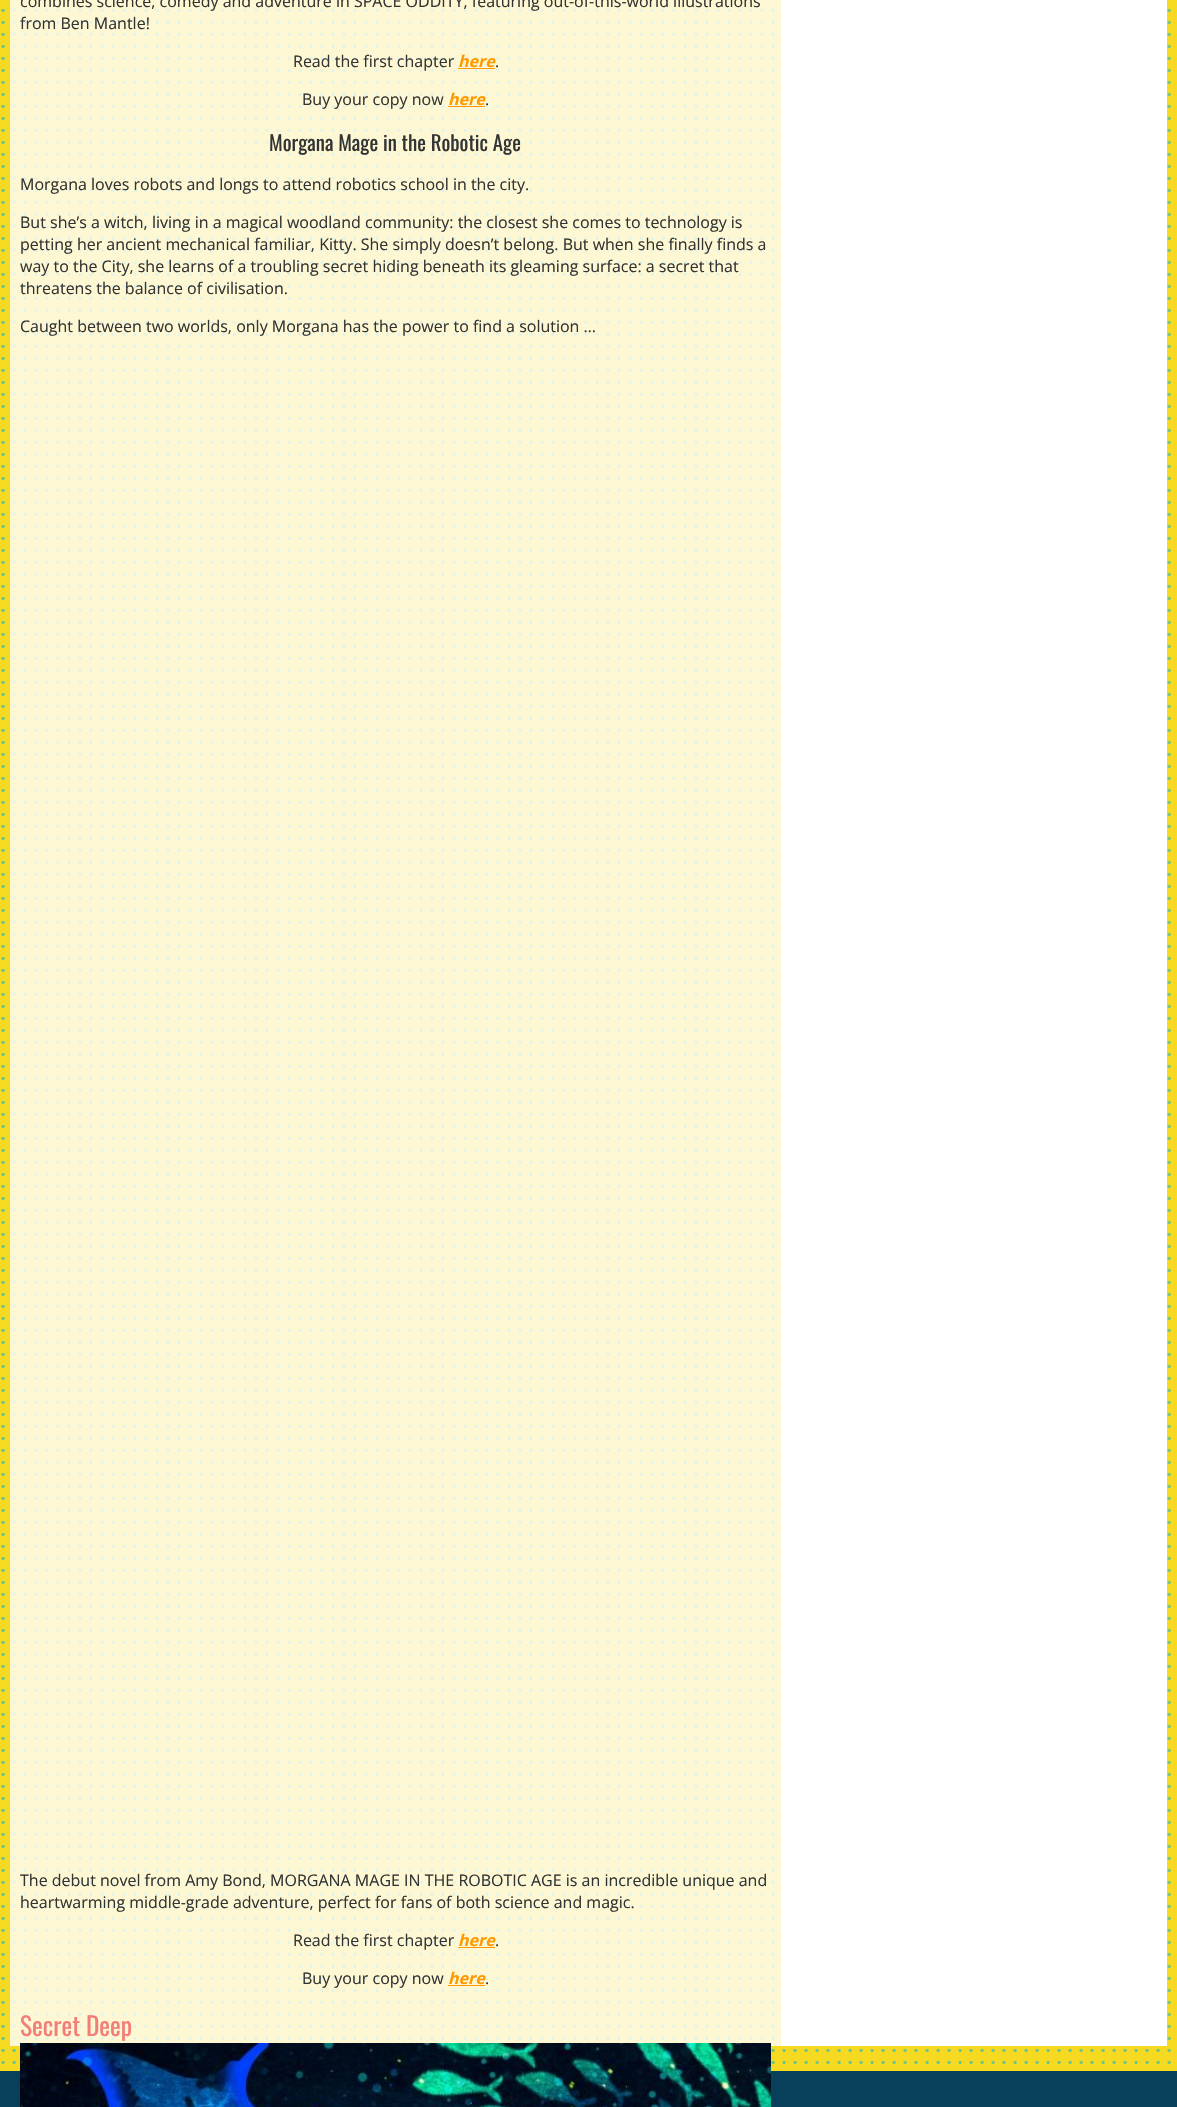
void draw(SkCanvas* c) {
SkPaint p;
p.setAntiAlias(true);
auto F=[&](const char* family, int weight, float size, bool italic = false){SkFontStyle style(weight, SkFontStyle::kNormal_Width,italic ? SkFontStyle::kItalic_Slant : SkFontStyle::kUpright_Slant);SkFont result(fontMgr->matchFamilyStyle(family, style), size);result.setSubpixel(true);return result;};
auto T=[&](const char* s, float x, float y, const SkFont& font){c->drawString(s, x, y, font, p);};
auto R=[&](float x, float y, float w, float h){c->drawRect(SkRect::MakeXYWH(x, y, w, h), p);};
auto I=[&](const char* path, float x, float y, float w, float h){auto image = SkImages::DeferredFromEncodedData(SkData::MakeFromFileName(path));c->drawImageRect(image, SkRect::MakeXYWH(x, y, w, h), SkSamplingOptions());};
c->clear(0xfff5da21);
I("1.png",1,9,1170,2062);
p.setColor(0xccffffff);
R(10,0,771,2046);
auto f1 = F("Open Sans",400,16);
p.setColor(0xff333333);
T("combines science, comedy and adventure in SPACE ODDITY, featuring out-of-this-world illustrations",20,7,f1);
T("from Ben Mantle!",20,29,f1);
T("Read the first chapter",293,67,f1);
auto f2 = F("Open Sans",700,16,true);
p.setColor(0xffff9900);
T("here",458,67,f2);
p.setColor(0xff333333);
T(".",495,67,f1);
p.setColor(0xffff9900);
R(458,68,37,1);
p.setColor(0xff333333);
T("Buy your copy now",302,105,f1);
p.setColor(0xffff9900);
T("here",448,105,f2);
p.setColor(0xff333333);
T(".",485,105,f1);
p.setColor(0xffff9900);
R(448,106,37,1);
auto f3 = F("Oswald",400,20.75);
p.setColor(0xff333333);
T("Morgana Mage in the Robotic Age",269,151,f3);
T("Morgana loves robots and longs to attend robotics school in the city.",20,190,f1);
T("But she’s a witch, living in a magical woodland community: the closest she comes to technology is",20,228,f1);
T("petting her ancient mechanical familiar, Kitty. She simply doesn’t belong. But when she finally finds a",20,250,f1);
T("way to the City, she learns of a troubling secret hiding beneath its gleaming surface: a secret that",20,272,f1);
T("threatens the balance of civilisation.",20,294,f1);
T("Caught between two worlds, only Morgana has the power to find a solution …",20,332,f1);
T("The debut novel from Amy Bond, MORGANA MAGE IN THE ROBOTIC AGE is an incredible unique and",20,1886,f1);
T("heartwarming middle-grade adventure, perfect for fans of both science and magic.",20,1908,f1);
T("Read the first chapter",293,1946,f1);
p.setColor(0xffff9900);
T("here",458,1946,f2);
p.setColor(0xff333333);
T(".",495,1946,f1);
p.setColor(0xffff9900);
R(458,1947,37,1);
p.setColor(0xff333333);
T("Buy your copy now",302,1984,f1);
p.setColor(0xffff9900);
T("here",448,1984,f2);
p.setColor(0xff333333);
T(".",485,1984,f1);
p.setColor(0xffff9900);
R(448,1985,37,1);
auto f4 = F("Oswald",400,25.5);
p.setColor(0xfff37e78);
T("Secret Deep",20,2036,f4);
p.setColor(0xff083f5b);
R(0,2071,1177,36);
I("2.png",20,2043,751,64);
p.setColor(0xffffffff);
R(781,0,386,2046);
}
